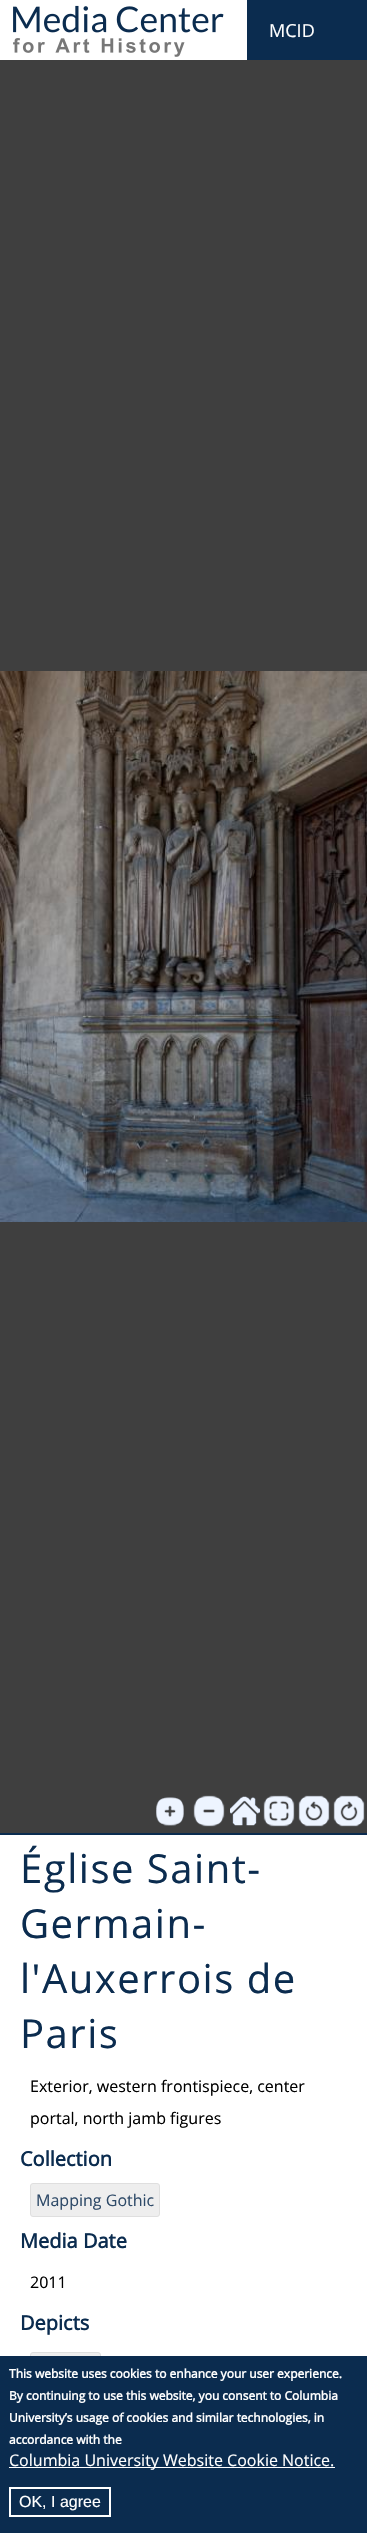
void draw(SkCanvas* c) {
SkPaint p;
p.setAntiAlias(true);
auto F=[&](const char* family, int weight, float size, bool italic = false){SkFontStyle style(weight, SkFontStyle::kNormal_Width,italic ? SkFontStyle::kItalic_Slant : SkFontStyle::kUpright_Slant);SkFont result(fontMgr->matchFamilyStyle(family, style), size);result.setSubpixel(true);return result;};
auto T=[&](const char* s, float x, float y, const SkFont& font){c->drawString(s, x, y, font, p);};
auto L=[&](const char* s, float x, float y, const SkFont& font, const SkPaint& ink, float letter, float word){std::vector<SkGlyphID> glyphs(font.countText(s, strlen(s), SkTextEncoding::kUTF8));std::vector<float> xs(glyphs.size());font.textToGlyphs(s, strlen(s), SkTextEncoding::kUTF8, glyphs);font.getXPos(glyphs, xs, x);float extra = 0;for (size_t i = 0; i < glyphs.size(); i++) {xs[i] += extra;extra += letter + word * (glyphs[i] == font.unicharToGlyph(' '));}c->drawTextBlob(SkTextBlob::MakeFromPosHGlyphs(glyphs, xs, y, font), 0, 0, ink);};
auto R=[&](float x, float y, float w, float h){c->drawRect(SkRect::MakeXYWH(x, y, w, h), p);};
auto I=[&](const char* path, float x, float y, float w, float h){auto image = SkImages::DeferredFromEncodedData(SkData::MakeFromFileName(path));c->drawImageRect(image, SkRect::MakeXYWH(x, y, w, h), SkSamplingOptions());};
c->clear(0xffffffff);
p.setColor(0xff0b2c4f);
R(247,0,120,60);
I("1.png",13,5,211,52);
auto f1 = F("Open Sans",400,18);
p.setColor(0xffffffff);
T("MCID",269,37,f1);
p.setColor(0xff3f3f3f);
R(0,60,367,1773);
I("2.png",0,671,367,551);
I("3.png",156,1797,28,29);
I("4.png",156,1797,28,29);
I("5.png",193,1795,32,32);
I("6.png",193,1795,32,32);
I("7.png",230,1796,30,30);
I("8.png",230,1796,30,30);
I("9.png",263,1795,32,32);
I("10.png",263,1795,32,32);
I("11.png",298,1795,32,32);
I("12.png",298,1795,32,32);
I("13.png",333,1795,32,32);
I("14.png",333,1795,32,32);
p.setColor(0xff0b2c4f);
R(0,1833,367,2);
auto f2 = F("Open Sans",400,40);
L("Église Saint-",20,1883,f2,p,1.5,0);
L("Germain-",20,1938,f2,p,1.5,0);
L("l'Auxerrois de",20,1993,f2,p,1.5,0);
L("Paris",20,2048,f2,p,1.5,0);
auto f3 = F("Open Sans",400,16);
p.setColor(0xff000000);
T("Exterior, western frontispiece, center",30,2092,f3);
T("portal, north jamb figures",30,2124,f3);
auto f4 = F("Open Sans",700,20);
p.setColor(0xff0b2c4f);
T("Collection",20,2166,f4);
p.setColor(0xffeeeeee);
c->drawRoundRect(SkRect::MakeXYWH(30.5,2183.5,129,33),2.5,2.5,p);
p.setStroke(true);
p.setStrokeWidth(1);
p.setColor(0xffdfdfdf);
c->drawRoundRect(SkRect::MakeXYWH(30.5,2183.5,129,33),2.5,2.5,p);
p.setStroke(false);
p.setColor(0xff2e4a68);
T("Mapping Gothic",36,2206,f3);
p.setColor(0xff0b2c4f);
T("Media Date",20,2248,f4);
p.setColor(0xff000000);
T("2011",30,2288,f3);
p.setColor(0xff0b2c4f);
T("Depicts",20,2330,f4);
p.setColor(0xffeeeeee);
c->drawRoundRect(SkRect::MakeXYWH(30.5,2352.5,70,33),2.5,2.5,p);
p.setStroke(true);
p.setColor(0xffdfdfdf);
c->drawRoundRect(SkRect::MakeXYWH(30.5,2352.5,70,33),2.5,2.5,p);
p.setStroke(false);
p.setColor(0xff0b2c4f);
R(0,2356,367,177);
auto f5 = F("Open Sans",700,12);
p.setColor(0xffffffff);
T("This website uses cookies to enhance your user experience.",9,2378,f5);
T("By continuing to use this website, you consent to Columbia",9,2400,f5);
T("University’s usage of cookies and similar technologies, in",9,2422,f5);
T("accordance with the",9,2444,f5);
R(9,2467,326,1);
T("Columbia University Website Cookie Notice.",9,2466,f3);
p.setStroke(true);
p.setStrokeWidth(2);
c->drawRect(SkRect::MakeXYWH(10,2488,100,28),p);
auto f6 = F("Liberation Sans",400,16);
p.setStroke(false);
T("OK, I agree",19,2507,f6);
}
